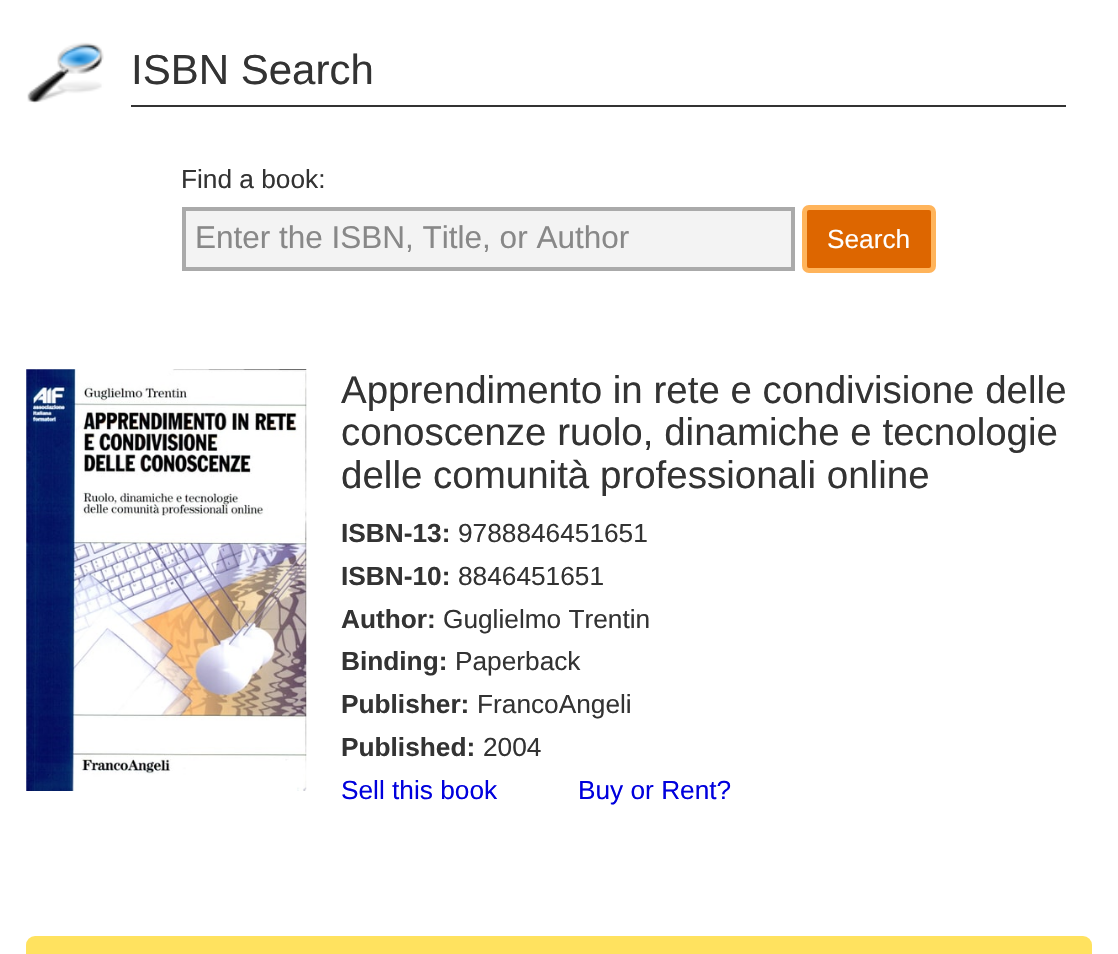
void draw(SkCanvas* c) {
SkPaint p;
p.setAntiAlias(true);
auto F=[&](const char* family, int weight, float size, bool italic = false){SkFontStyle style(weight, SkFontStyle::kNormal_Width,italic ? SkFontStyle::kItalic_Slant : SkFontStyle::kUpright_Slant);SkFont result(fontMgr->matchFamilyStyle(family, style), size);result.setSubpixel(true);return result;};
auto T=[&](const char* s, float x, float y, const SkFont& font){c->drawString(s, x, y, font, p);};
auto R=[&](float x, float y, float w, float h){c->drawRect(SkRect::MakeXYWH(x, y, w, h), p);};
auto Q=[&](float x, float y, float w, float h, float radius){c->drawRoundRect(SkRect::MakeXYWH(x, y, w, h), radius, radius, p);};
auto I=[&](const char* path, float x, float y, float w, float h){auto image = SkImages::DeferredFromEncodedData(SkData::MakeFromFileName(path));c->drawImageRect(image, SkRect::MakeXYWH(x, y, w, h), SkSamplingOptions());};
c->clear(0xffffffff);
I("1.png",27,42,77,62);
p.setColor(0xff333333);
R(131,105,935,2);
auto f1 = F("Liberation Sans",400,42);
T("ISBN Search",131,84,f1);
auto f2 = F("Liberation Sans",400,26.25);
T("Find a book:",181,188,f2);
p.setColor(0xfff3f3f3);
c->drawRect(SkRect::MakeXYWH(184,209,609,60),p);
p.setStroke(true);
p.setStrokeWidth(4);
p.setColor(0xffaaaaaa);
c->drawRect(SkRect::MakeXYWH(184,209,609,60),p);
auto f3 = F("Liberation Sans",400,31.5);
p.setStroke(false);
p.setColor(0xff888888);
T("Enter the ISBN, Title, or Author",195,248,f3);
p.setColor(0xffdd6600);
c->drawRoundRect(SkRect::MakeXYWH(804.5,207.5,129,63),4.5,4.5,p);
p.setStroke(true);
p.setStrokeWidth(5);
p.setColor(0xffffb45b);
c->drawRoundRect(SkRect::MakeXYWH(804.5,207.5,129,63),4.5,4.5,p);
p.setStroke(false);
p.setColor(0xffffffff);
T("Search",827,248,f2);
I("2.png",26,369,281,422);
auto f4 = F("Liberation Sans",400,38.5);
p.setColor(0xff333333);
T("Apprendimento in rete e condivisione delle",341,403,f4);
T("conoscenze ruolo, dinamiche e tecnologie",341,445,f4);
T("delle comunità professionali online",341,488,f4);
auto f5 = F("Liberation Sans",700,26.25);
T("ISBN-13:",341,542,f5);
T("9788846451651",458,542,f2);
T("ISBN-10:",341,585,f5);
T("8846451651",458,585,f2);
T("Author:",341,628,f5);
T("Guglielmo Trentin",443,628,f2);
T("Binding:",341,670,f5);
T("Paperback",455,670,f2);
T("Publisher:",341,713,f5);
T("FrancoAngeli",477,713,f2);
T("Published:",341,756,f5);
T("2004",483,756,f2);
p.setColor(0xff0000dd);
T("Sell this book",341,799,f2);
T("Buy or Rent?",578,799,f2);
p.setColor(0xffffe25f);
Q(26,936,1066,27,9);
}
